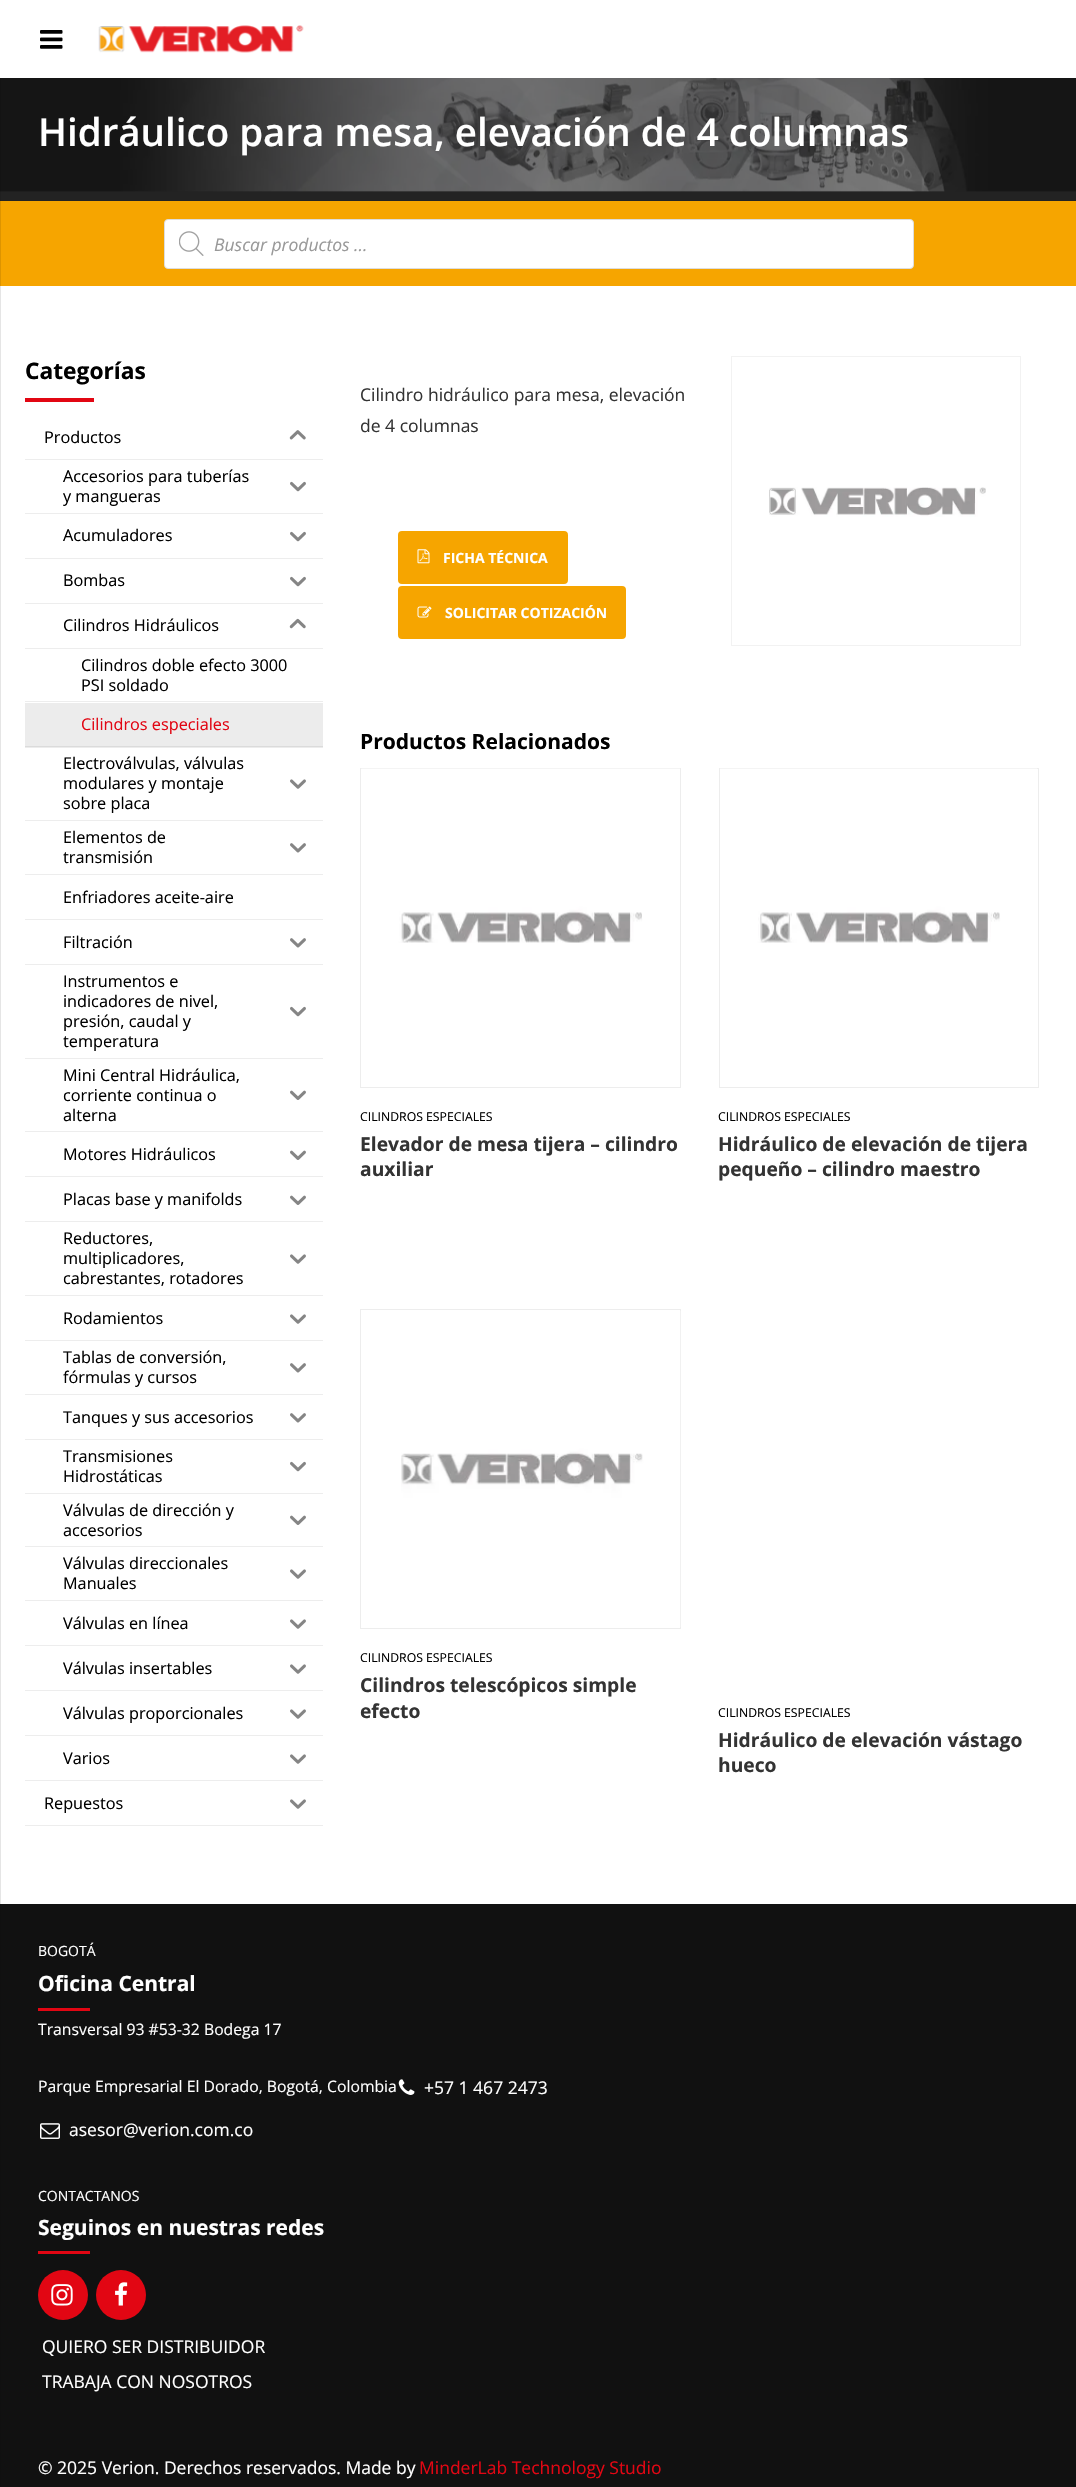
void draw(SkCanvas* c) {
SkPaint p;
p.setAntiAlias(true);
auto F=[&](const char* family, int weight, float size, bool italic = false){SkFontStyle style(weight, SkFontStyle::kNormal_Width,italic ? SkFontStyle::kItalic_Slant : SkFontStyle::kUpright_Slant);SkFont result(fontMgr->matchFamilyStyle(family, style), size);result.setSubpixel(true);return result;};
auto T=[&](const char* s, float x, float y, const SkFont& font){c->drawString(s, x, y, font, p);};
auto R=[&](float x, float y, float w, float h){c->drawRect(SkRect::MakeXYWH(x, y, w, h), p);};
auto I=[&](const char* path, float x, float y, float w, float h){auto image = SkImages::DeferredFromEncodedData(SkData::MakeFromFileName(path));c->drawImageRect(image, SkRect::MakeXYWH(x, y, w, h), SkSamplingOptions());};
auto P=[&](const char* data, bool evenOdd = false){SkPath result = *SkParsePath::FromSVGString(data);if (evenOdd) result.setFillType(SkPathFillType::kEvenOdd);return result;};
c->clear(0xffffffff);
p.setColor(0xff232323);
R(0,190,1076,11);
I("3.png",0,78,1076,114);
p.setColor(0xfff6a500);
R(0,201,1076,85);
p.setColor(0xff111111);
R(0,1904,1076,583);
p.setColor(0x1a000000);
c->drawPath(P("M-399 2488h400v-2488h-1v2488z"),p);
p.setColor(0xffffffff);
R(0,0,1,78);
I("1.png",40,30,23,19);
I("2.png",98,25,206,28);
auto f1 = F("Open Sans",600,38.5);
T("Hidráulico para mesa, elevación de 4 columnas",38,146,f1);
c->drawRoundRect(SkRect::MakeXYWH(164.5,219.5,749,49),3.5,3.5,p);
p.setStroke(true);
p.setStrokeWidth(1);
p.setColor(0xffdddddd);
c->drawRoundRect(SkRect::MakeXYWH(164.5,219.5,749,49),3.5,3.5,p);
I("4.png",179,231,25,25);
auto f2 = F("Open Sans",400,17.5,true);
p.setStroke(false);
p.setColor(0xff999999);
T("Buscar productos ...",214,251,f2);
auto f3 = F("Open Sans",700,22.75);
p.setColor(0xff000000);
T("Categorías",25,379,f3);
p.setColor(0xffe20613);
R(25,398,69,4);
p.setColor(0xffededed);
R(25,459,298,1);
auto f4 = F("Open Sans",400,16.25);
p.setColor(0xff000000);
T("Productos",44,443,f4);
I("5.png",289,430,17,10);
p.setColor(0xffededed);
R(25,513,298,1);
p.setColor(0xff000000);
T("Accesorios para tuberías",63,482,f4);
T("y mangueras",63,502,f4);
I("6.png",290,481,16,11);
p.setColor(0xffededed);
R(25,558,298,1);
p.setColor(0xff000000);
T("Acumuladores",63,541,f4);
I("6.png",290,531,16,11);
p.setColor(0xffededed);
R(25,603,298,1);
p.setColor(0xff000000);
T("Bombas",63,586,f4);
I("6.png",290,576,16,11);
p.setColor(0xffededed);
R(25,648,298,1);
p.setColor(0xff000000);
T("Cilindros Hidráulicos",63,631,f4);
I("7.png",289,618,17,11);
p.setColor(0xffededed);
R(25,701,298,1);
p.setColor(0xff000000);
T("Cilindros doble efecto 3000",81,671,f4);
T("PSI soldado",81,691,f4);
p.setColor(0xffececec);
R(25,703,298,45);
p.setColor(0xffdbdbdb);
R(25,746,298,1);
p.setColor(0xffe20613);
T("Cilindros especiales",81,730,f4);
p.setColor(0xffededed);
R(25,820,298,1);
p.setColor(0xff000000);
T("Electroválvulas, válvulas",63,769,f4);
T("modulares y montaje",63,789,f4);
T("sobre placa",63,809,f4);
I("8.png",290,779,16,10);
p.setColor(0xffededed);
R(25,874,298,1);
p.setColor(0xff000000);
T("Elementos de",63,843,f4);
T("transmisión",63,863,f4);
I("9.png",290,843,16,10);
p.setColor(0xffededed);
R(25,919,298,1);
p.setColor(0xff000000);
T("Enfriadores aceite-aire",63,903,f4);
p.setColor(0xffededed);
R(25,964,298,1);
p.setColor(0xff000000);
T("Filtración",63,948,f4);
I("9.png",290,938,16,10);
p.setColor(0xffededed);
R(25,1058,298,1);
p.setColor(0xff000000);
T("Instrumentos e",63,987,f4);
T("indicadores de nivel,",63,1007,f4);
T("presión, caudal y",63,1027,f4);
T("temperatura",63,1047,f4);
I("6.png",290,1006,16,11);
p.setColor(0xffededed);
R(25,1131,298,1);
p.setColor(0xff000000);
T("Mini Central Hidráulica,",63,1081,f4);
T("corriente continua o",63,1101,f4);
T("alterna",63,1121,f4);
I("10.png",290,1090,16,10);
p.setColor(0xffededed);
R(25,1176,298,1);
p.setColor(0xff000000);
T("Motores Hidráulicos",63,1160,f4);
I("10.png",290,1150,16,10);
p.setColor(0xffededed);
R(25,1221,298,1);
p.setColor(0xff000000);
T("Placas base y manifolds",63,1205,f4);
I("10.png",290,1195,16,10);
p.setColor(0xffededed);
R(25,1295,298,1);
p.setColor(0xff000000);
T("Reductores,",63,1244,f4);
T("multiplicadores,",63,1264,f4);
T("cabrestantes, rotadores",63,1284,f4);
I("8.png",290,1254,16,10);
p.setColor(0xffededed);
R(25,1340,298,1);
p.setColor(0xff000000);
T("Rodamientos",63,1324,f4);
I("8.png",290,1314,16,10);
p.setColor(0xffededed);
R(25,1394,298,1);
p.setColor(0xff000000);
T("Tablas de conversión,",63,1363,f4);
T("fórmulas y cursos",63,1383,f4);
I("9.png",290,1363,16,10);
p.setColor(0xffededed);
R(25,1439,298,1);
p.setColor(0xff000000);
T("Tanques y sus accesorios",63,1423,f4);
I("9.png",290,1413,16,10);
p.setColor(0xffededed);
R(25,1493,298,1);
p.setColor(0xff000000);
T("Transmisiones",63,1462,f4);
T("Hidrostáticas",63,1482,f4);
I("6.png",290,1461,16,11);
p.setColor(0xffededed);
R(25,1546,298,1);
p.setColor(0xff000000);
T("Válvulas de dirección y",63,1516,f4);
T("accesorios",63,1536,f4);
I("10.png",290,1515,16,10);
p.setColor(0xffededed);
R(25,1600,298,1);
p.setColor(0xff000000);
T("Válvulas direccionales",63,1569,f4);
T("Manuales",63,1589,f4);
I("8.png",290,1569,16,10);
p.setColor(0xffededed);
R(25,1645,298,1);
p.setColor(0xff000000);
T("Válvulas en línea",63,1629,f4);
I("8.png",290,1619,16,10);
p.setColor(0xffededed);
R(25,1690,298,1);
p.setColor(0xff000000);
T("Válvulas insertables",63,1674,f4);
I("8.png",290,1664,16,10);
p.setColor(0xffededed);
R(25,1735,298,1);
p.setColor(0xff000000);
T("Válvulas proporcionales",63,1719,f4);
I("8.png",290,1709,16,10);
p.setColor(0xffededed);
R(25,1780,298,1);
p.setColor(0xff000000);
T("Varios",63,1764,f4);
I("8.png",290,1754,16,10);
p.setColor(0xffededed);
R(25,1825,298,1);
p.setColor(0xff000000);
T("Repuestos",44,1809,f4);
I("8.png",290,1799,16,10);
auto f5 = F("Open Sans",400,17.5);
p.setColor(0xff333333);
T("Cilindro hidráulico para mesa, elevación",360,401,f5);
T("de 4 columnas",360,432,f5);
p.setColor(0xfff6a500);
c->drawRoundRect(SkRect::MakeXYWH(399.5,532.5,167,50),2.5,2.5,p);
p.setStroke(true);
p.setStrokeWidth(3);
c->drawRoundRect(SkRect::MakeXYWH(399.5,532.5,167,50),2.5,2.5,p);
I("11.png",417,549,13,15);
auto f6 = F("Open Sans",700,14);
p.setStroke(false);
p.setColor(0xffffffff);
T("FICHA TÉCNICA",443,563,f6);
p.setColor(0xfff6a500);
c->drawRoundRect(SkRect::MakeXYWH(399.5,587.5,225,50),2.5,2.5,p);
p.setStroke(true);
c->drawRoundRect(SkRect::MakeXYWH(399.5,587.5,225,50),2.5,2.5,p);
I("12.png",417,606,15,12);
p.setStroke(false);
p.setColor(0xffffffff);
T("SOLICITAR COTIZACIÓN",445,618,f6);
p.setStroke(true);
p.setStrokeWidth(1);
p.setColor(0xfff2f2f2);
c->drawRect(SkRect::MakeXYWH(731.5,356.5,289,289),p);
I("13.png",769,487,217,30);
auto f7 = F("Open Sans",700,21);
p.setStroke(false);
p.setColor(0xff000000);
T("Productos Relacionados",360,749,f7);
p.setStroke(true);
p.setColor(0xffededed);
c->drawRect(SkRect::MakeXYWH(360.5,768.5,320,319),p);
I("14.png",361,768,319,175);
auto f8 = F("Open Sans",400,12.25);
p.setStroke(false);
p.setColor(0xff000000);
T("CILINDROS ESPECIALES",360,1121,f8);
auto f9 = F("Open Sans",700,19.25);
p.setColor(0xff333333);
T("Elevador de mesa tijera – cilindro",360,1151,f9);
T("auxiliar",360,1176,f9);
p.setStroke(true);
p.setColor(0xffededed);
c->drawRect(SkRect::MakeXYWH(719.5,768.5,319,319),p);
I("15.png",720,768,317,175);
p.setStroke(false);
p.setColor(0xff000000);
T("CILINDROS ESPECIALES",718,1121,f8);
p.setColor(0xff333333);
T("Hidráulico de elevación de tijera",718,1151,f9);
T("pequeño – cilindro maestro",718,1176,f9);
p.setStroke(true);
p.setColor(0xffededed);
c->drawRect(SkRect::MakeXYWH(360.5,1309.5,320,319),p);
I("16.png",401,1311,280,316);
p.setStroke(false);
p.setColor(0xff000000);
T("CILINDROS ESPECIALES",360,1662,f8);
p.setColor(0xff333333);
T("Cilindros telescópicos simple",360,1692,f9);
T("efecto",360,1718,f9);
p.setColor(0xff000000);
T("CILINDROS ESPECIALES",718,1717,f8);
p.setColor(0xff333333);
T("Hidráulico de elevación vástago",718,1747,f9);
T("hueco",718,1772,f9);
auto f10 = F("Open Sans",400,14);
p.setColor(0xffffffff);
T("BOGOTÁ",38,1956,f10);
T("Oficina Central",38,1991,f7);
p.setColor(0xffe20613);
R(38,2008,52,3);
auto f11 = F("Open Sans",400,15.75);
p.setColor(0xffffffff);
T("Transversal 93 #53-32 Bodega 17",38,2035,f11);
T("Parque Empresarial El Dorado, Bogotá, Colombia",38,2092,f11);
I("17.png",398,2079,17,16);
T("+57 1 467 2473",424,2094,f5);
I("18.png",40,2123,20,16);
T("asesor@verion.com.co",69,2136,f5);
T("CONTACTANOS",38,2201,f10);
T("Seguinos en nuestras redes",38,2235,f7);
p.setColor(0xffe20613);
R(38,2251,52,3);
c->drawCircle(63,2295,25,p);
I("19.png",51,2284,22,22);
c->drawCircle(121,2295,25,p);
I("20.png",115,2282,13,24);
p.setColor(0xffffffff);
T("QUIERO SER DISTRIBUIDOR",42,2353,f5);
T("TRABAJA CON NOSOTROS",42,2388,f5);
T("© 2025 Verion. Derechos reservados. Made by",38,2474,f5);
p.setColor(0xffe20613);
T("MinderLab Technology Studio",419,2474,f5);
}
